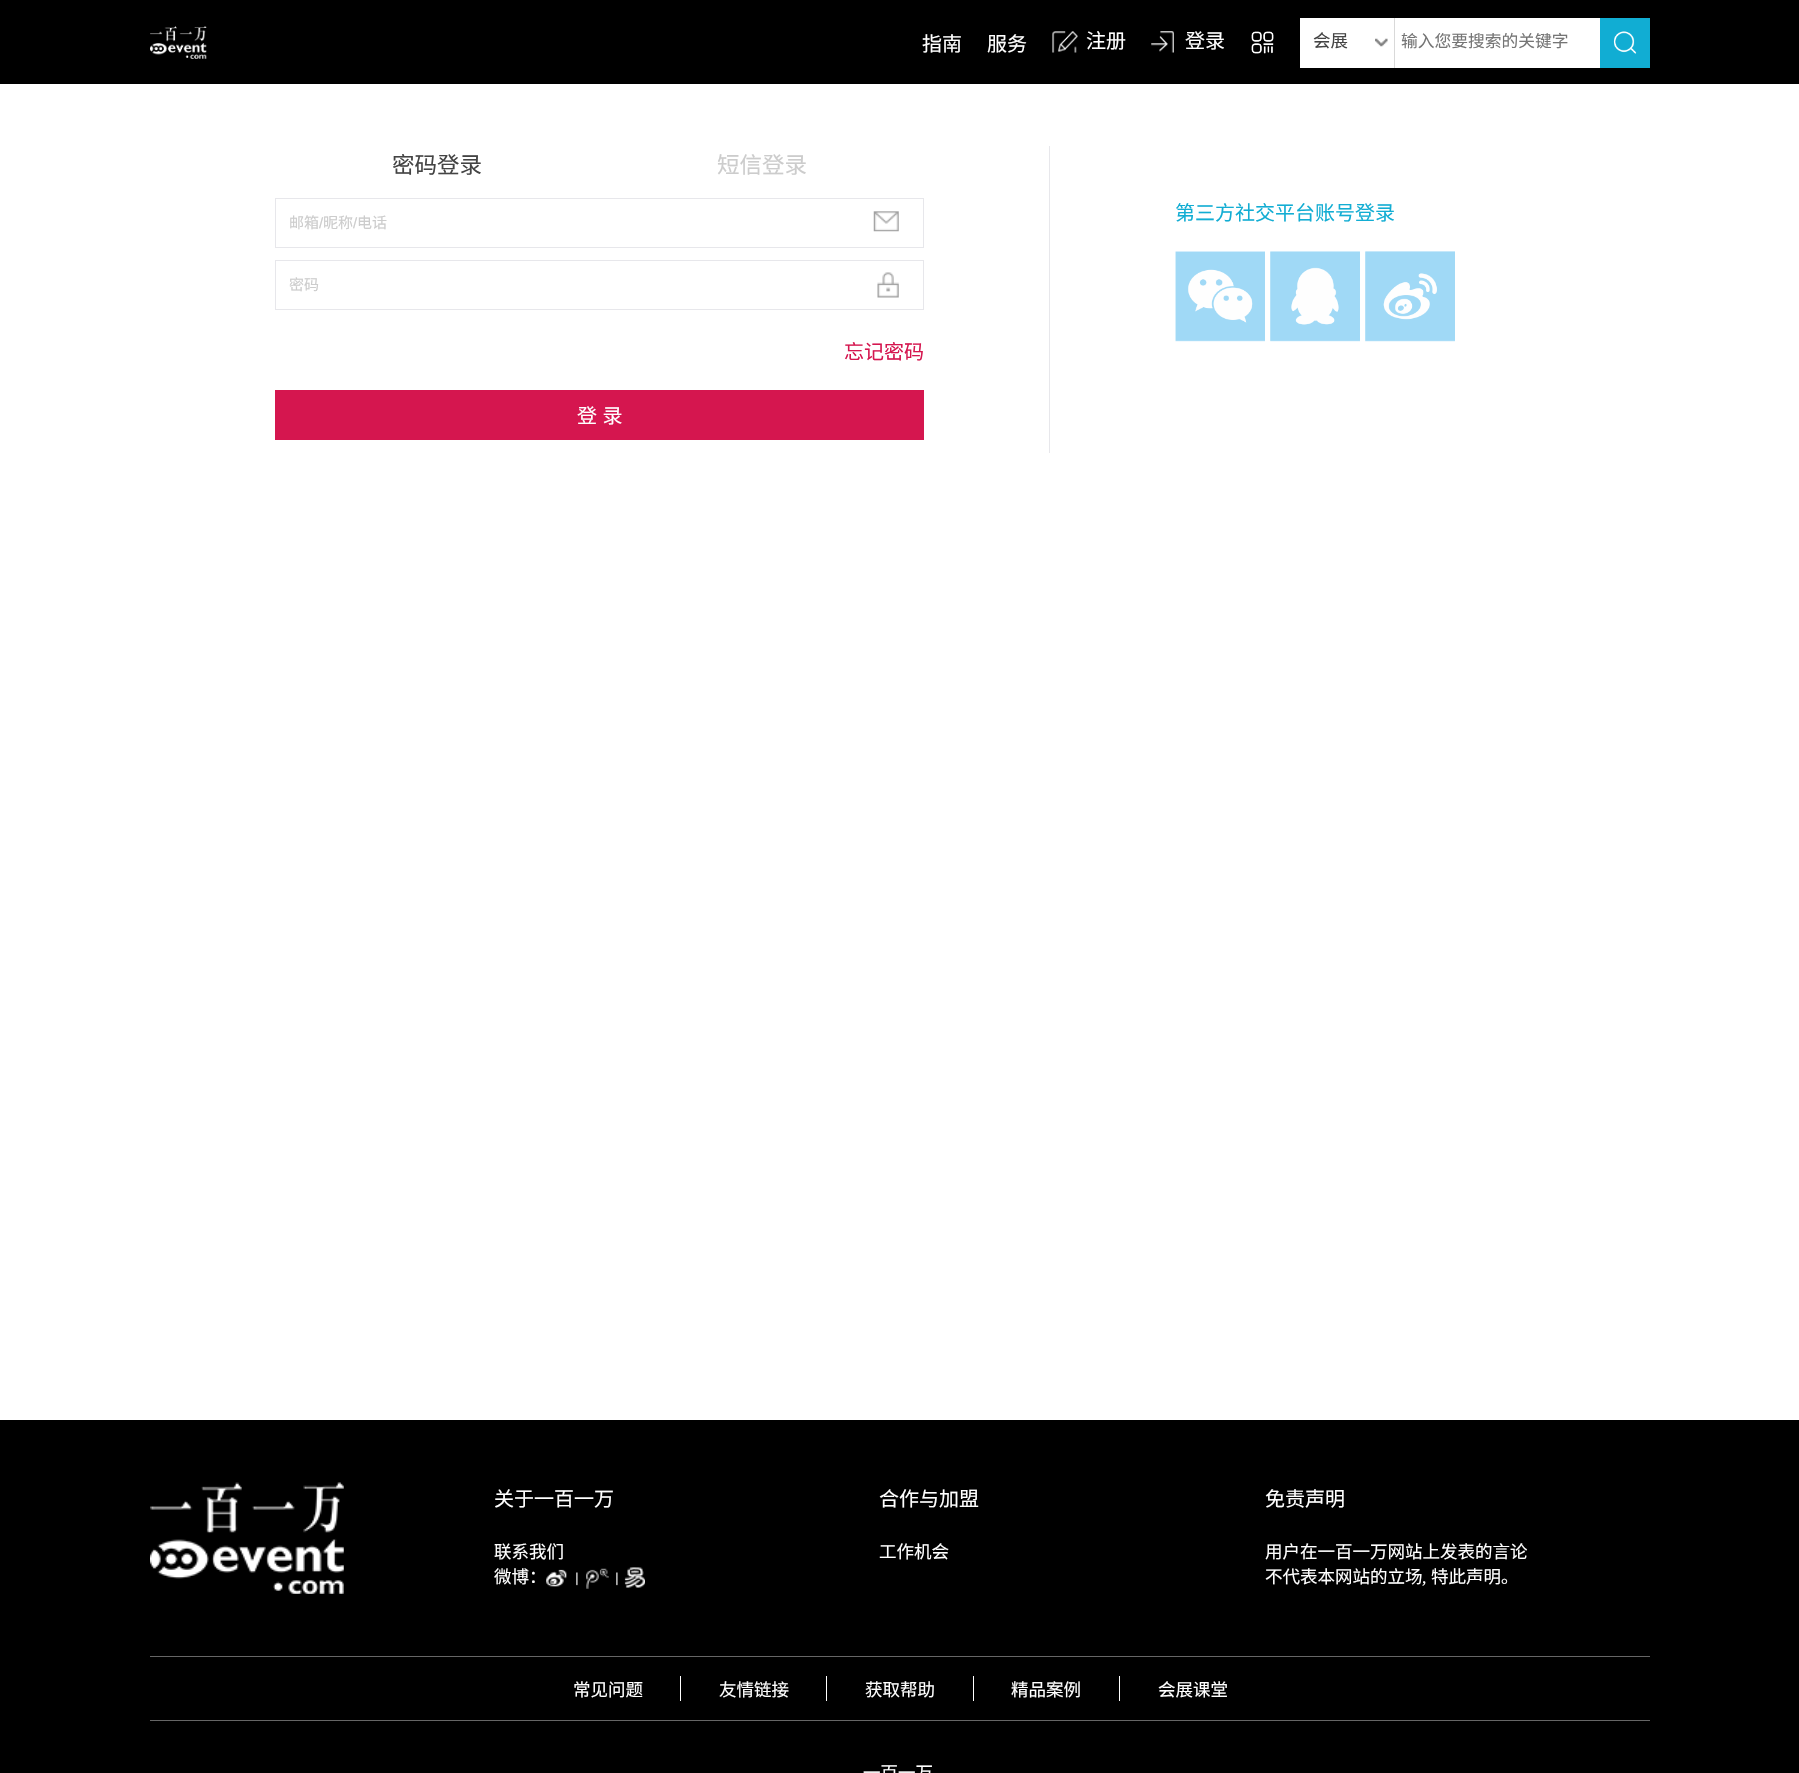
void draw(SkCanvas* c) {
SkPaint p;
p.setAntiAlias(true);
auto F=[&](const char* family, int weight, float size, bool italic = false){SkFontStyle style(weight, SkFontStyle::kNormal_Width,italic ? SkFontStyle::kItalic_Slant : SkFontStyle::kUpright_Slant);SkFont result(fontMgr->matchFamilyStyle(family, style), size);result.setSubpixel(true);return result;};
auto T=[&](const char* s, float x, float y, const SkFont& font){c->drawString(s, x, y, font, p);};
auto L=[&](const char* s, float x, float y, const SkFont& font, const SkPaint& ink, float letter, float word){std::vector<SkGlyphID> glyphs(font.countText(s, strlen(s), SkTextEncoding::kUTF8));std::vector<float> xs(glyphs.size());font.textToGlyphs(s, strlen(s), SkTextEncoding::kUTF8, glyphs);font.getXPos(glyphs, xs, x);float extra = 0;for (size_t i = 0; i < glyphs.size(); i++) {xs[i] += extra;extra += letter + word * (glyphs[i] == font.unicharToGlyph(' '));}c->drawTextBlob(SkTextBlob::MakeFromPosHGlyphs(glyphs, xs, y, font), 0, 0, ink);};
auto R=[&](float x, float y, float w, float h){c->drawRect(SkRect::MakeXYWH(x, y, w, h), p);};
auto I=[&](const char* path, float x, float y, float w, float h){auto image = SkImages::DeferredFromEncodedData(SkData::MakeFromFileName(path));c->drawImageRect(image, SkRect::MakeXYWH(x, y, w, h), SkSamplingOptions());};
c->clear(0xffffffff);
p.setColor(0xff000000);
R(0,0,1799,84);
I("1.png",150,26,57,33);
auto f1 = F("Noto Sans CJK SC",400,20);
p.setColor(0xffffffff);
T("指南",922,51,f1);
T("服务",987,51,f1);
I("2.png",1052,31,26,22);
T("注册",1086,48,f1);
I("3.png",1151,31,23,22);
T("登录",1185,48,f1);
I("4.png",1251,31,23,23);
R(1300,18,94,50);
p.setColor(0xffd9d9d9);
R(1394,18,1,50);
I("5.png",1375,38,13,9);
auto f2 = F("Noto Sans CJK SC",400,17.5);
p.setColor(0xff444444);
T("会展",1313,47,f2);
p.setColor(0xffffffff);
R(1395,18,205,50);
auto f3 = F("Noto Sans CJK SC",400,16.75);
p.setColor(0xff757575);
T("输入您要搜索的关键字",1401,47,f3);
p.setColor(0xff11add3);
R(1600,18,50,50);
I("6.png",1613,31,24,23);
p.setColor(0xffe7e7eb);
R(1049,146,1,307);
auto f4 = F("Noto Sans CJK SC",400,22.5);
p.setColor(0xff444444);
T("密码登录",392,173,f4);
p.setColor(0xffcccccc);
T("短信登录",717,173,f4);
p.setStroke(true);
p.setStrokeWidth(1);
p.setColor(0xffe7e7eb);
c->drawRect(SkRect::MakeXYWH(275.5,198.5,648,49),p);
auto f5 = F("Noto Sans CJK SC",400,15);
p.setStroke(false);
p.setColor(0xffcccccc);
T("邮箱",289,228,f5);
auto f6 = F("Liberation Sans",400,15);
T("/",319,228,f6);
T("昵称",323,228,f5);
T("/",353,228,f6);
T("电话",357,228,f5);
I("7.png",873,211,26,21);
p.setStroke(true);
p.setColor(0xffe7e7eb);
c->drawRect(SkRect::MakeXYWH(275.5,260.5,648,49),p);
p.setStroke(false);
p.setColor(0xffcccccc);
T("密码",289,290,f5);
I("8.png",877,272,22,26);
p.setColor(0xffd5164f);
T("忘记密码",844,359,f1);
R(275,390,649,50);
p.setColor(0xffffffff);
L("登 录",577,423,f1,p,0,1);
p.setColor(0xff12add3);
T("第三方社交平台账号登录",1175,220,f1);
I("9.png",1175,251,90,91);
I("10.png",1270,251,90,91);
I("11.png",1365,251,90,91);
p.setColor(0xff000000);
R(0,1420,1799,353);
I("12.png",150,1482,194,112);
p.setColor(0xffffffff);
T("关于一百一万",494,1506,f1);
T("联系我们",494,1558,f2);
T("微博：",494,1583,f2);
I("13.png",546,1567,99,22);
T("合作与加盟",879,1506,f1);
T("工作机会",879,1558,f2);
T("免责声明",1265,1506,f1);
T("用户在一百一万网站上发表的言论",1265,1558,f2);
T("不代表本网站的立场",1265,1583,f2);
auto f7 = F("Liberation Serif",400,17.5);
T(",",1422,1583,f7);
T("特此声明。",1431,1583,f2);
p.setColor(0xff666666);
R(150,1656,1500,1);
R(150,1720,1500,1);
p.setColor(0xffffffff);
R(680,1676,1,25);
T("常见问题",573,1696,f2);
R(826,1676,1,25);
T("友情链接",719,1696,f2);
R(973,1676,1,25);
T("获取帮助",865,1696,f2);
R(1119,1676,1,25);
T("精品案例",1011,1696,f2);
T("会展课堂",1158,1696,f2);
T("一百一万",863,1779,f2);
}
